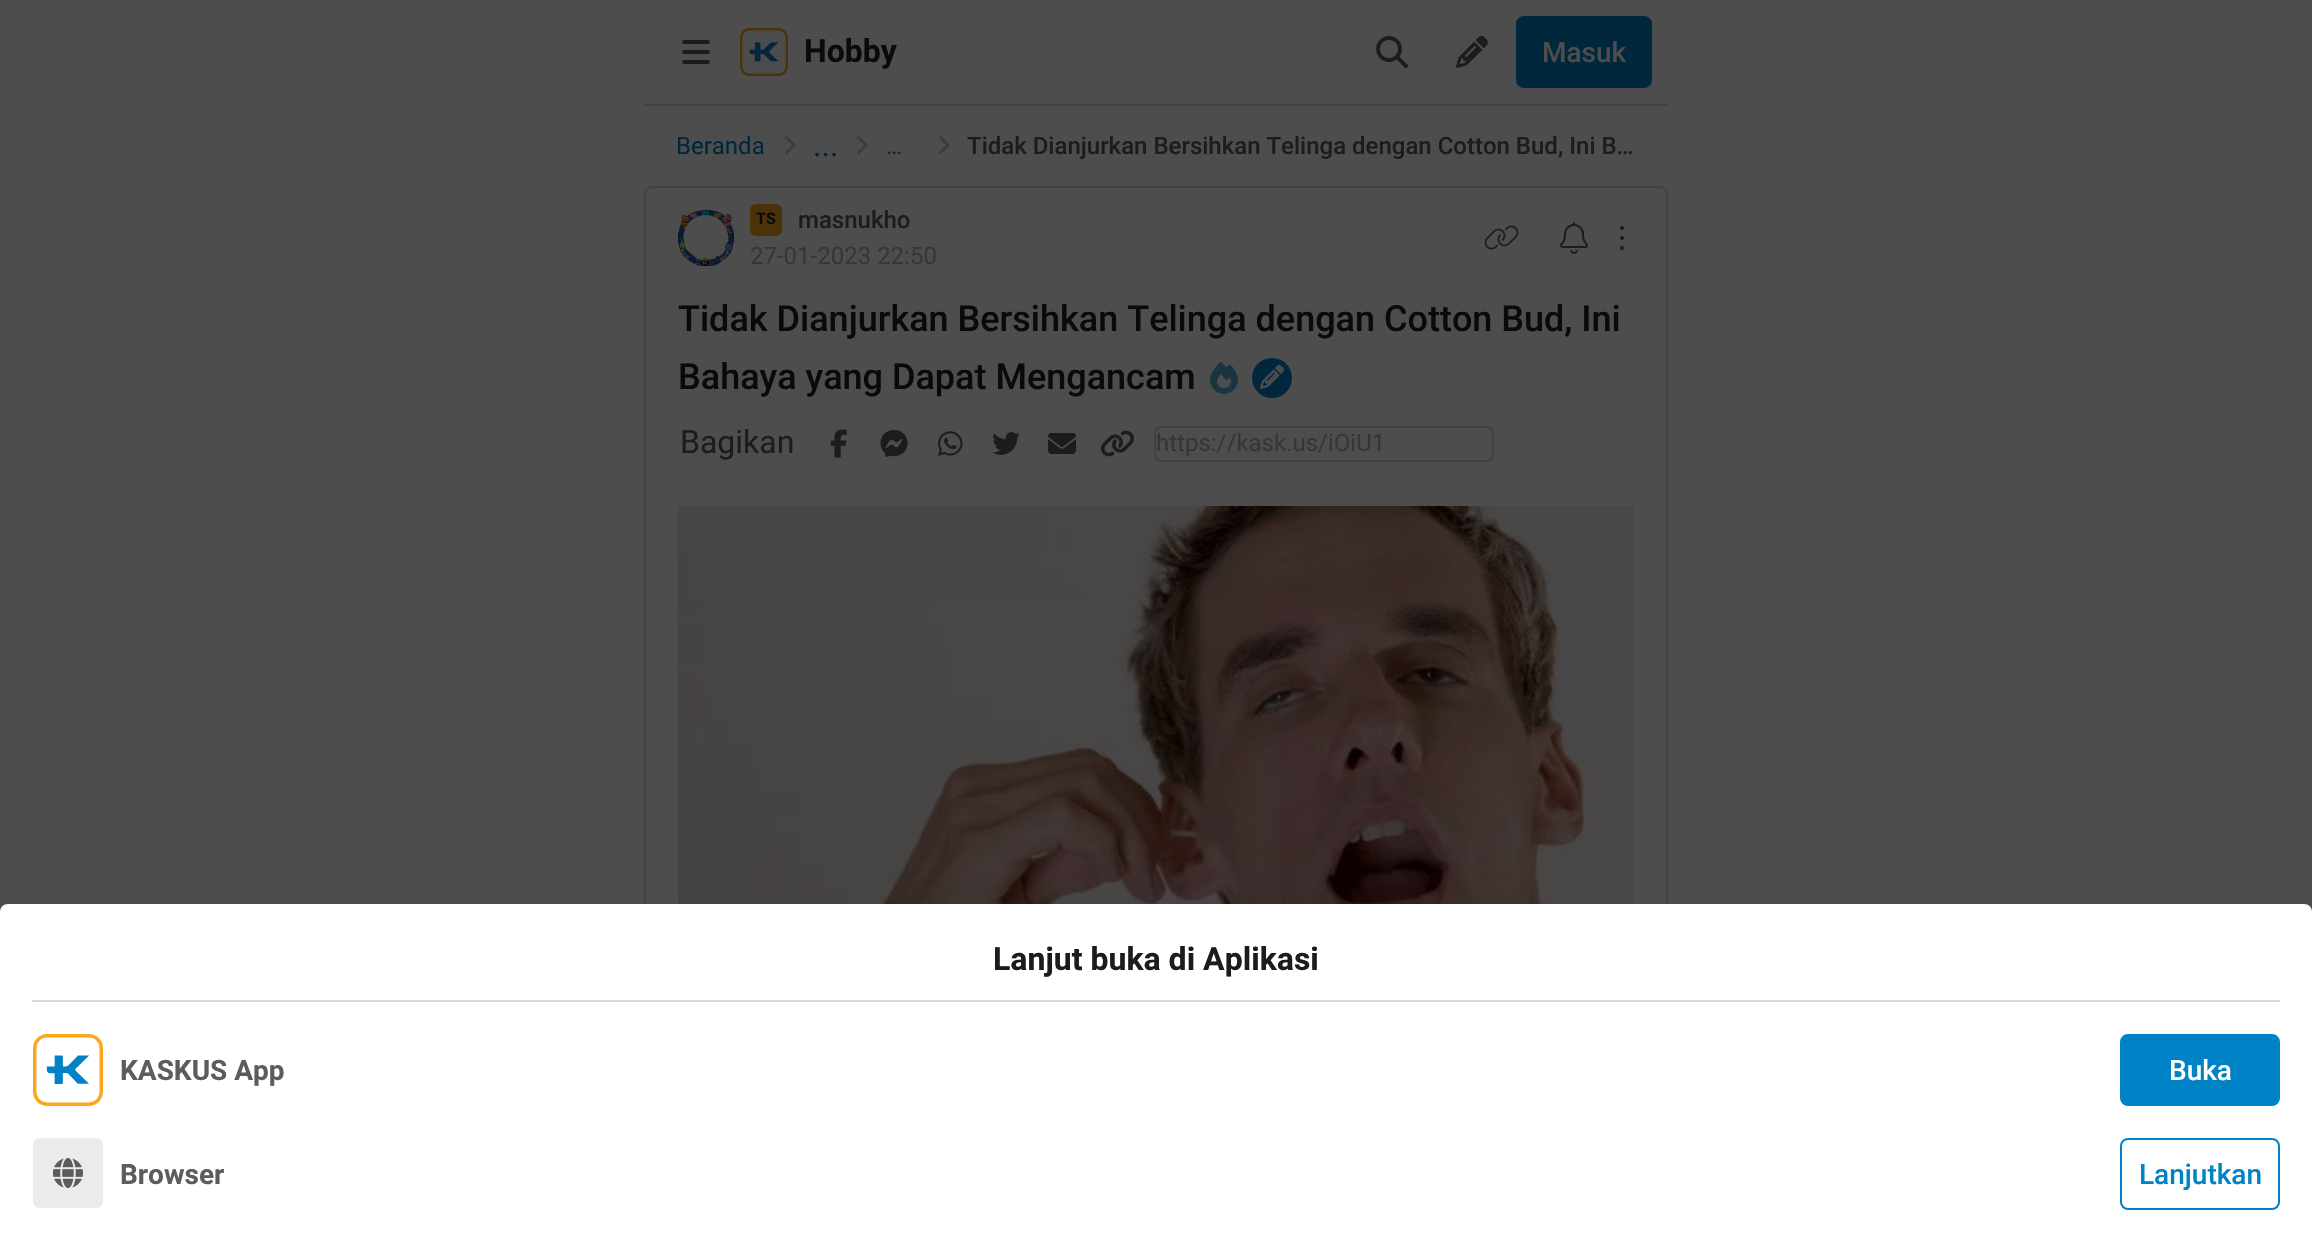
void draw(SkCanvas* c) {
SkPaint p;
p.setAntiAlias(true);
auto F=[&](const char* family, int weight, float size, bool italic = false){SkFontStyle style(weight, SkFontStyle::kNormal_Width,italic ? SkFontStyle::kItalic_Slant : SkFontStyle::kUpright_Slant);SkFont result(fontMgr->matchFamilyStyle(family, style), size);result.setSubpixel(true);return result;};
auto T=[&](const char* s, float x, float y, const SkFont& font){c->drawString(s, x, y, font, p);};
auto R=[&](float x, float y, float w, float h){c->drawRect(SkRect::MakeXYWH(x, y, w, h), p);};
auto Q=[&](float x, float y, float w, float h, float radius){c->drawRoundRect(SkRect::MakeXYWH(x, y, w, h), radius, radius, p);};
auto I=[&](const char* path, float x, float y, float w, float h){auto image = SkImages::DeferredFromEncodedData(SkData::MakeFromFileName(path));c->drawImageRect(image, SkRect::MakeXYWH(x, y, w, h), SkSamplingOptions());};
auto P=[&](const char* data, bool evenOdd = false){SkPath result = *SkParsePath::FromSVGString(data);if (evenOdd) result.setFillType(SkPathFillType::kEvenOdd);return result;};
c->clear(0xff4d4d4d);
p.setColor(0xff414141);
R(644,104,1024,2);
I("1.png",682,40,28,24);
I("2.png",740,28,48,48);
auto f1 = F("Roboto",700,32);
p.setColor(0xff0a0a0a);
T("Hobby",804,62,f1);
I("3.png",1376,36,32,32);
I("4.png",1456,36,32,32);
p.setColor(0xff00273b);
c->drawRoundRect(SkRect::MakeXYWH(1517,17,134,70),7,7,p);
p.setStroke(true);
p.setStrokeWidth(2);
c->drawRoundRect(SkRect::MakeXYWH(1517,17,134,70),7,7,p);
auto f2 = F("Roboto",500,28);
p.setStroke(false);
p.setColor(0xff4d4d4d);
T("Masuk",1542,62,f2);
auto f3 = F("Roboto",400,24);
p.setColor(0xff00273b);
T("Beranda",676,154,f3);
I("5.png",785,136,11,18);
I("5.png",857,136,11,18);
auto f4 = F("Roboto",400,32);
T("...",813,156,f4);
T("…",886,154,f3);
I("5.png",939,136,11,18);
auto f5 = F("Roboto",500,24);
p.setColor(0xff1c1c1c);
T("Tidak Dianjurkan Bersihkan Telinga dengan Cotton Bud, Ini B…",967,154,f5);
p.setStroke(true);
p.setColor(0xff414141);
c->drawRoundRect(SkRect::MakeXYWH(645,187,1022,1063),7,7,p);
I("6.png",678,210,56,56);
p.setStroke(false);
p.setColor(0xff4b3208);
Q(750,204,32,32,6);
auto f6 = F("Roboto",700,16);
p.setColor(0xff0a0a0a);
T("TS",756,224,f6);
p.setColor(0xff1c1c1c);
T("masnukho",798,228,f5);
p.setColor(0xff363636);
T("27-01-2023 22:50",750,264,f3);
I("7.png",1484,225,35,25);
I("8.png",1560,222,28,32);
I("9.png",1620,226,4,24);
auto f7 = F("Roboto",500,36);
p.setColor(0xff0a0a0a);
T("Tidak Dianjurkan Bersihkan Telinga dengan Cotton Bud, Ini",678,331,f7);
T("Bahaya yang Dapat Mengancam",678,389,f7);
I("10.png",1210,362,28,32);
p.setColor(0xff00273b);
c->drawCircle(1272,378,20,p);
I("11.png",1260,365,24,24);
p.setColor(0xff1c1c1c);
T("Bagikan",680,453,f4);
I("12.png",830,429,17,29);
I("13.png",880,430,28,27);
I("14.png",938,431,25,25);
I("15.png",992,432,28,23);
I("16.png",1048,433,28,21);
I("17.png",1101,430,33,27);
p.setStroke(true);
p.setColor(0xff414141);
c->drawRoundRect(SkRect::MakeXYWH(1155,427,338,34),7,7,p);
p.setStroke(false);
p.setColor(0xff363636);
T("https://kask.us/iOiU1",1156,451,f3);
I("18.png",678,506,956,398);
p.setColor(0xffffffff);
c->drawPath(P("M8 904h2296c4.5 0 8 3.5 8 8v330h-2312v-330c0-4.5 3.5-8 8-8z"),p);
p.setColor(0xff1c1c1c);
T("Lanjut buka di Aplikasi",993,970,f1);
p.setColor(0xffd9d9d9);
R(32,1000,2248,2);
I("19.png",33,1034,70,72);
auto f8 = F("Roboto",700,28);
p.setColor(0xff5c5c5c);
T("KASKUS App",120,1080,f8);
p.setColor(0xff0082c6);
c->drawRoundRect(SkRect::MakeXYWH(2121,1035,158,70),7,7,p);
p.setStroke(true);
c->drawRoundRect(SkRect::MakeXYWH(2121,1035,158,70),7,7,p);
p.setStroke(false);
p.setColor(0xffffffff);
T("Buka",2169,1080,f2);
I("20.png",33,1138,70,70);
p.setColor(0xff5c5c5c);
T("Browser",120,1184,f8);
p.setStroke(true);
p.setColor(0xff0082c6);
c->drawRoundRect(SkRect::MakeXYWH(2121,1139,158,70),7,7,p);
p.setStroke(false);
T("Lanjutkan",2139,1184,f2);
}
